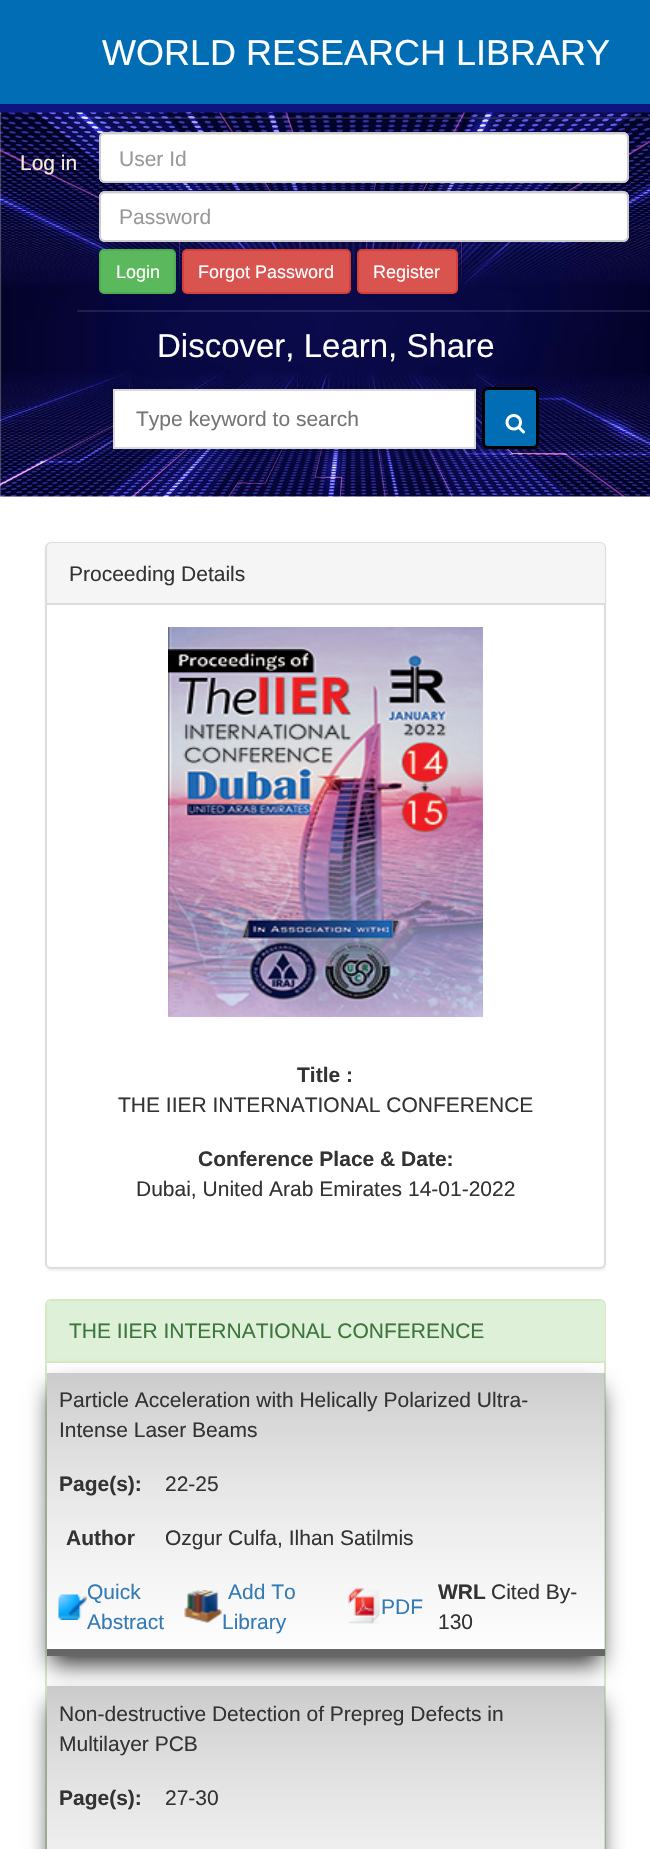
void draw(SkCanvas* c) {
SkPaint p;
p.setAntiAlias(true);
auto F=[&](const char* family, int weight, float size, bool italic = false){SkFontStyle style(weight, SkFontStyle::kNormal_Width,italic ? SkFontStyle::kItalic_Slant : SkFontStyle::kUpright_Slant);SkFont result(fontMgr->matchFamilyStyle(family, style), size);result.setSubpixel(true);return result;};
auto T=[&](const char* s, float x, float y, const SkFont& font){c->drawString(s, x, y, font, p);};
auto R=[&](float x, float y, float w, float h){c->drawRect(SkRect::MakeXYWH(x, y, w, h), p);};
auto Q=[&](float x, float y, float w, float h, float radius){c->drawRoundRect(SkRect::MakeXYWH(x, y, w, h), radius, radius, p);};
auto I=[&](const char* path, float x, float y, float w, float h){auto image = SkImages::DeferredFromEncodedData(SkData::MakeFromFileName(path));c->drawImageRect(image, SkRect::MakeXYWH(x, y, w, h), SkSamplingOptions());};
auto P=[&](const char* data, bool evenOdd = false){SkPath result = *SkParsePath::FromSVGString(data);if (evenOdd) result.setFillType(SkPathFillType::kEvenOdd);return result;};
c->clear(0xffffffff);
p.setColor(0xff006db4);
R(0,0,650,104);
p.setColor(0xff10147e);
R(0,104,650,9);
auto f1 = F("Liberation Sans",400,36);
p.setColor(0xffffffff);
T("WORLD RESEARCH LIBRARY",102,65,f1);
I("1.png",0,112,650,385);
p.setColor(0x1affffff);
R(77,310,573,2);
R(77,117,573,2);
auto f2 = F("Liberation Sans",400,21);
p.setColor(0xfffaebd7);
T("Log in",20,170,f2);
p.setColor(0xffffffff);
Q(99,132,530,51,6);
p.setColor(0xffececec);
c->drawPath(P("M105 135h517c3 0 5 2 5 5v-1c0-3-2-5-5-5h-516c-2 0-3 1-4 2z"),p);
p.setStroke(true);
p.setStrokeWidth(2);
p.setColor(0xffcccccc);
c->drawRoundRect(SkRect::MakeXYWH(100,133,528,49),5,5,p);
p.setStroke(false);
p.setColor(0xff999999);
T("User Id",119,166,f2);
p.setColor(0xffffffff);
Q(99,191,530,51,6);
p.setColor(0xffececec);
c->drawPath(P("M105 194h517c3 0 5 2 5 4v-1c0-3-2-5-5-5h-516c-2 0-4 2-5 4c1-1 3-2 4-2z"),p);
p.setStroke(true);
p.setColor(0xffcccccc);
c->drawRoundRect(SkRect::MakeXYWH(100,192,528,49),5,5,p);
p.setStroke(false);
p.setColor(0xff999999);
T("Password",119,224,f2);
p.setColor(0xff5cb85c);
c->drawRoundRect(SkRect::MakeXYWH(100,250,75,43),4,4,p);
p.setStroke(true);
p.setColor(0xff4cae4c);
c->drawRoundRect(SkRect::MakeXYWH(100,250,75,43),4,4,p);
auto f3 = F("Liberation Sans",400,18);
p.setStroke(false);
p.setColor(0xffffffff);
T("Login",116,278,f3);
p.setColor(0xffd9534f);
c->drawRoundRect(SkRect::MakeXYWH(183,250,167,43),4,4,p);
p.setStroke(true);
p.setColor(0xffd43f3a);
c->drawRoundRect(SkRect::MakeXYWH(183,250,167,43),4,4,p);
p.setStroke(false);
p.setColor(0xffffffff);
T("Forgot Password",198,278,f3);
p.setColor(0xffd9534f);
c->drawRoundRect(SkRect::MakeXYWH(358,250,99,43),4,4,p);
p.setStroke(true);
p.setColor(0xffd43f3a);
c->drawRoundRect(SkRect::MakeXYWH(358,250,99,43),4,4,p);
p.setStroke(false);
p.setColor(0xffffffff);
T("Register",373,278,f3);
auto f4 = F("Liberation Sans",400,33);
T("Discover, Learn, Share",157,357,f4);
p.setColor(0x1a000000);
p.setMaskFilter(SkMaskFilter::MakeBlur(kNormal_SkBlurStyle, 4));
c->drawRect(SkRect::MakeXYWH(111,387,366,63),p);
p.setMaskFilter(nullptr);
p.setColor(0xffffffff);
c->drawRect(SkRect::MakeXYWH(114,390,361,58),p);
p.setStroke(true);
p.setColor(0xffd9d9d9);
c->drawRect(SkRect::MakeXYWH(114,390,361,58),p);
p.setStroke(false);
p.setColor(0xff757575);
T("Type keyword to search",136,426,f2);
p.setColor(0xff006db4);
c->drawRoundRect(SkRect::MakeXYWH(483.5,388.5,54,59),4.5,4.5,p);
p.setStroke(true);
p.setStrokeWidth(3);
p.setColor(0xff000000);
c->drawRoundRect(SkRect::MakeXYWH(483.5,388.5,54,59),4.5,4.5,p);
I("2.png",505,414,20,20);
p.setStroke(false);
p.setColor(0x0d000000);
p.setMaskFilter(SkMaskFilter::MakeBlur(kNormal_SkBlurStyle, 1));
c->drawRoundRect(SkRect::MakeXYWH(45,543,561,728),6,6,p);
p.setMaskFilter(nullptr);
p.setColor(0xffffffff);
c->drawRoundRect(SkRect::MakeXYWH(46,543,559,725),5,5,p);
p.setStroke(true);
p.setStrokeWidth(2);
p.setColor(0xffdddddd);
c->drawRoundRect(SkRect::MakeXYWH(46,543,559,725),5,5,p);
p.setStroke(false);
p.setColor(0xfff5f5f5);
c->drawPath(P("M52 543h548c3 0 5 2 5 5v57h-558v-57c0-3 2-5 5-5z"),p);
p.setColor(0xffdddddd);
R(47,603,558,2);
p.setColor(0xff333333);
T("Proceeding Details",69,581,f2);
I("3.png",168,627,315,390);
auto f5 = F("Liberation Sans",700,21);
T("Title :",297,1082,f5);
T("THE IIER INTERNATIONAL CONFERENCE",118,1112,f2);
T("Conference Place & Date:",198,1166,f5);
T("Dubai, United Arab Emirates 14-01-2022",136,1196,f2);
p.setStroke(true);
p.setColor(0xffd6e9c6);
c->drawRoundRect(SkRect::MakeXYWH(46,1300,559,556),5,5,p);
p.setStroke(false);
p.setColor(0xffdff0d8);
c->drawPath(P("M52 1301h548c3 0 5 2 5 5v56h-558v-56c0-3 2-5 5-5z"),p);
p.setColor(0xffd6e9c6);
R(47,1361,558,2);
p.setColor(0xff3c763d);
T("THE IIER INTERNATIONAL CONFERENCE",69,1338,f2);
c->save();
c->clipPath(P("M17 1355h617v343h-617zm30 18h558v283h-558z",true),true);
p.setColor(0xff333333);
p.setMaskFilter(SkMaskFilter::MakeBlur(kNormal_SkBlurStyle, 11));
c->drawRect(SkRect::MakeXYWH(51,1389,549,275),p);
p.setMaskFilter(nullptr);
c->restore();
{
const SkColor colors[] = {0x0acccccc,0x80999999};
const float stops[] = {0,1};
const SkPoint ends[] = {{326,1649}, {326,1373}};
p.setShader(SkGradientShader::MakeLinear(ends, colors, stops, 2, SkTileMode::kClamp));
p.setAlpha(255);
}
R(47,1373,558,273);
p.setShader(nullptr);
p.setColor(0xff666666);
R(47,1649,558,7);
p.setColor(0xff333333);
T("Particle Acceleration with Helically Polarized Ultra-",59,1407,f2);
T("Intense Laser Beams",59,1437,f2);
T("Page(s):",59,1491,f5);
T("22-25",165,1491,f2);
T("Author",66,1545,f5);
T("Ozgur Culfa, Ilhan Satilmis",165,1545,f2);
I("4.png",58,1594,29,26);
p.setColor(0xff337ab7);
T("Quick",87,1599,f2);
T("Abstract",87,1629,f2);
I("5.png",184,1590,38,33);
T("Add To",228,1599,f2);
T("Library",222,1629,f2);
I("6.png",348,1588,32,36);
T("PDF",381,1614,f2);
p.setColor(0xff333333);
T("WRL",438,1599,f5);
T("Cited By-",491,1599,f2);
T("130",438,1629,f2);
c->save();
c->clipPath(P("M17 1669h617v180h-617zm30 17h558v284h-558z",true),true);
p.setMaskFilter(SkMaskFilter::MakeBlur(kNormal_SkBlurStyle, 11));
c->drawRect(SkRect::MakeXYWH(51,1703,549,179),p);
p.setMaskFilter(nullptr);
c->restore();
{
const SkColor colors[] = {0x0acccccc,0x80999999};
const float stops[] = {0,1};
const SkPoint ends[] = {{326,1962}, {326,1686}};
p.setShader(SkGradientShader::MakeLinear(ends, colors, stops, 2, SkTileMode::kClamp));
p.setAlpha(255);
}
R(47,1686,558,163);
p.setShader(nullptr);
p.setColor(0xff333333);
T("Non-destructive Detection of Prepreg Defects in",59,1721,f2);
T("Multilayer PCB",59,1751,f2);
T("Page(s):",59,1805,f5);
T("27-30",165,1805,f2);
}
